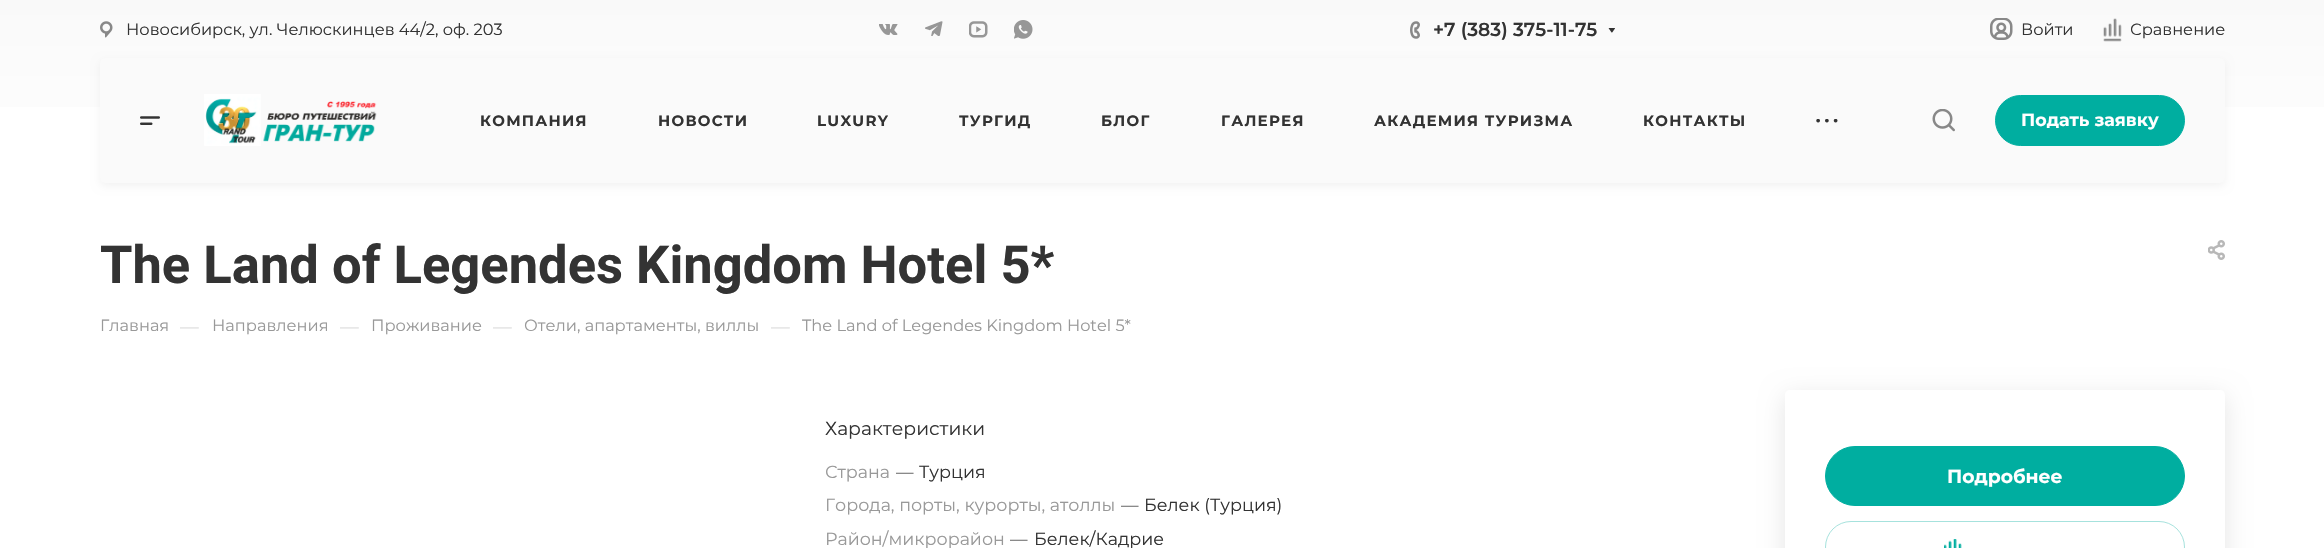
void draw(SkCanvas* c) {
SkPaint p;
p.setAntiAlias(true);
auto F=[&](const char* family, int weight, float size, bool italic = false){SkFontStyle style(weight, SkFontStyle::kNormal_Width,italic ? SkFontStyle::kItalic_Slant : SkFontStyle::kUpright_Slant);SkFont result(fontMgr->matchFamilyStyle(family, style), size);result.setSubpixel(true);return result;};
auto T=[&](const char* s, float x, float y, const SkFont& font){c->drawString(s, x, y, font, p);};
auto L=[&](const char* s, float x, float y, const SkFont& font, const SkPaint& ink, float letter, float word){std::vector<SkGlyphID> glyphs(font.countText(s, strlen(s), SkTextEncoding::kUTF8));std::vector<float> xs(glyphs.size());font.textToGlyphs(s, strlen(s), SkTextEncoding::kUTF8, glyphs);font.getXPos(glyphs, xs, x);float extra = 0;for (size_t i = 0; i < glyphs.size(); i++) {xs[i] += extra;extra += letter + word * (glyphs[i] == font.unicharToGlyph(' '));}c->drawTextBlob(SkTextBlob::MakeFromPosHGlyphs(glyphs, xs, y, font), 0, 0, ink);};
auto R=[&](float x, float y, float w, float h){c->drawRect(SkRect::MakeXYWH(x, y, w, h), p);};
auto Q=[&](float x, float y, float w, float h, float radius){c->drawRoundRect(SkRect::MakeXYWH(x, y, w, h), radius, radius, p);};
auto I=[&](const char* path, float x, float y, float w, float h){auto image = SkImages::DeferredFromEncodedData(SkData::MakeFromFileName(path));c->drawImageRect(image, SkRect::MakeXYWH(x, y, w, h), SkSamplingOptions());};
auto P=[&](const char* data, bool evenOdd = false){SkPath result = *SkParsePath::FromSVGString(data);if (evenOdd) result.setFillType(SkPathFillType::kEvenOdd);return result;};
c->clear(0xffffffff);
{
const SkColor colors[] = {0xfff9f9f9,0xffffffff};
const float stops[] = {0,1};
const SkPoint ends[] = {{1163,0}, {1163,183}};
p.setShader(SkGradientShader::MakeLinear(ends, colors, stops, 2, SkTileMode::kClamp));
p.setAlpha(255);
}
R(0,0,2324,107);
I("1.png",100,21,13,17);
auto f1 = F("Montserrat",400,16.25);
p.setShader(nullptr);
p.setColor(0xff333333);
T("Новосибирск, ул. Челюскинцев 44/2, оф. 203",126,35,f1);
I("2.png",879,24,19,11);
I("3.png",925,21,18,15);
I("4.png",969,21,19,17);
I("5.png",1014,20,19,19);
I("6.png",1410,21,10,18);
auto f2 = F("Montserrat",600,18.75);
T("+7 (383) 375-11-75",1433,36,f2);
I("7.png",1608,28,7,5);
I("8.png",1990,18,23,22);
T("Войти",2021,35,f1);
I("9.png",2103,18,19,24);
T("Сравнение",2130,35,f1);
p.setColor(0x0d000000);
p.setMaskFilter(SkMaskFilter::MakeBlur(kNormal_SkBlurStyle, 4.5));
c->drawRoundRect(SkRect::MakeXYWH(100,61,2125,125),5,5,p);
p.setMaskFilter(nullptr);
p.setColor(0xfffafafa);
Q(100,58,2125,125,5);
I("10.png",140,116,20,9);
I("11.png",204,94,173,52);
auto f3 = F("Montserrat",700,15);
p.setColor(0xff333333);
L("КОМПАНИЯ",480,126,f3,p,1.25,0);
L("НОВОСТИ",658,126,f3,p,1.25,0);
L("LUXURY",817,126,f3,p,1.25,0);
L("ТУРГИД",959,126,f3,p,1.25,0);
L("БЛОГ",1101,126,f3,p,1.25,0);
L("ГАЛЕРЕЯ",1221,126,f3,p,1.25,0);
L("АКАДЕМИЯ ТУРИЗМА",1374,126,f3,p,1.25,0);
L("КОНТАКТЫ",1643,126,f3,p,1.25,0);
I("12.png",1816,119,22,4);
I("13.png",1932,109,23,23);
p.setColor(0xff00aea0);
c->drawRoundRect(SkRect::MakeXYWH(1995.5,95.5,189,50),25,25,p);
p.setStroke(true);
p.setStrokeWidth(1);
c->drawRoundRect(SkRect::MakeXYWH(1995.5,95.5,189,50),25,25,p);
auto f4 = F("Montserrat",700,17.5);
p.setStroke(false);
p.setColor(0xffffffff);
T("Подать заявку",2021,126,f4);
auto f5 = F("Roboto",700,52.5);
p.setColor(0xff333333);
T("The Land of Legendes Kingdom Hotel 5*",100,283,f5);
I("14.png",2208,240,17,20);
p.setColor(0xff999999);
T("Главная",100,331,f1);
auto f6 = F("Montserrat",400,18.75);
p.setColor(0xffdddddd);
T("—",180,333,f6);
p.setColor(0xff999999);
T("Направления",212,331,f1);
p.setColor(0xffdddddd);
T("—",340,333,f6);
p.setColor(0xff999999);
T("Проживание",371,331,f1);
p.setColor(0xffdddddd);
T("—",493,333,f6);
p.setColor(0xff999999);
T("Отели, апартаменты, виллы",524,331,f1);
p.setColor(0xffdddddd);
T("—",771,333,f6);
p.setColor(0xff999999);
T("The Land of Legendes Kingdom Hotel 5*",802,331,f1);
p.setColor(0xff333333);
T("Характеристики",825,435,f6);
auto f7 = F("Montserrat",400,17.5);
p.setColor(0xff999999);
T("Страна",825,478,f7);
p.setColor(0xff666666);
T("—",896,478,f7);
p.setColor(0xff333333);
T("Турция",919,478,f7);
p.setColor(0xff999999);
T("Города, порты, курорты, атоллы",825,511,f7);
p.setColor(0xff666666);
T("—",1121,511,f7);
p.setColor(0xff333333);
T("Белек (Турция)",1144,511,f7);
p.setColor(0xff999999);
T("Район/микрорайон",825,545,f7);
p.setColor(0xff666666);
T("—",1010,545,f7);
p.setColor(0xff333333);
T("Белек/Кадрие",1034,545,f7);
c->save();
c->clipPath(P("M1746 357h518v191h-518zm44 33h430c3 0 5 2 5 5v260c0 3-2 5-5 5h-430c-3 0-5-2-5-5v-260c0-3 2-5 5-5z",true),true);
p.setColor(0x1a000000);
p.setMaskFilter(SkMaskFilter::MakeBlur(kNormal_SkBlurStyle, 12.5));
c->drawRoundRect(SkRect::MakeXYWH(1785,396,440,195),5,5,p);
p.setMaskFilter(nullptr);
c->restore();
p.setColor(0xff00aea0);
c->drawRoundRect(SkRect::MakeXYWH(1825.5,446.5,359,59),29.5,29.5,p);
p.setStroke(true);
c->drawRoundRect(SkRect::MakeXYWH(1825.5,446.5,359,59),29.5,29.5,p);
auto f8 = F("Montserrat",700,18.75);
p.setStroke(false);
p.setColor(0xffffffff);
T("Подробнее",1947,483,f8);
p.setStroke(true);
p.setColor(0xffa6e2dd);
c->drawRoundRect(SkRect::MakeXYWH(1825.5,521.5,359,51),25.5,25.5,p);
I("15.png",1944,539,18,9);
}
